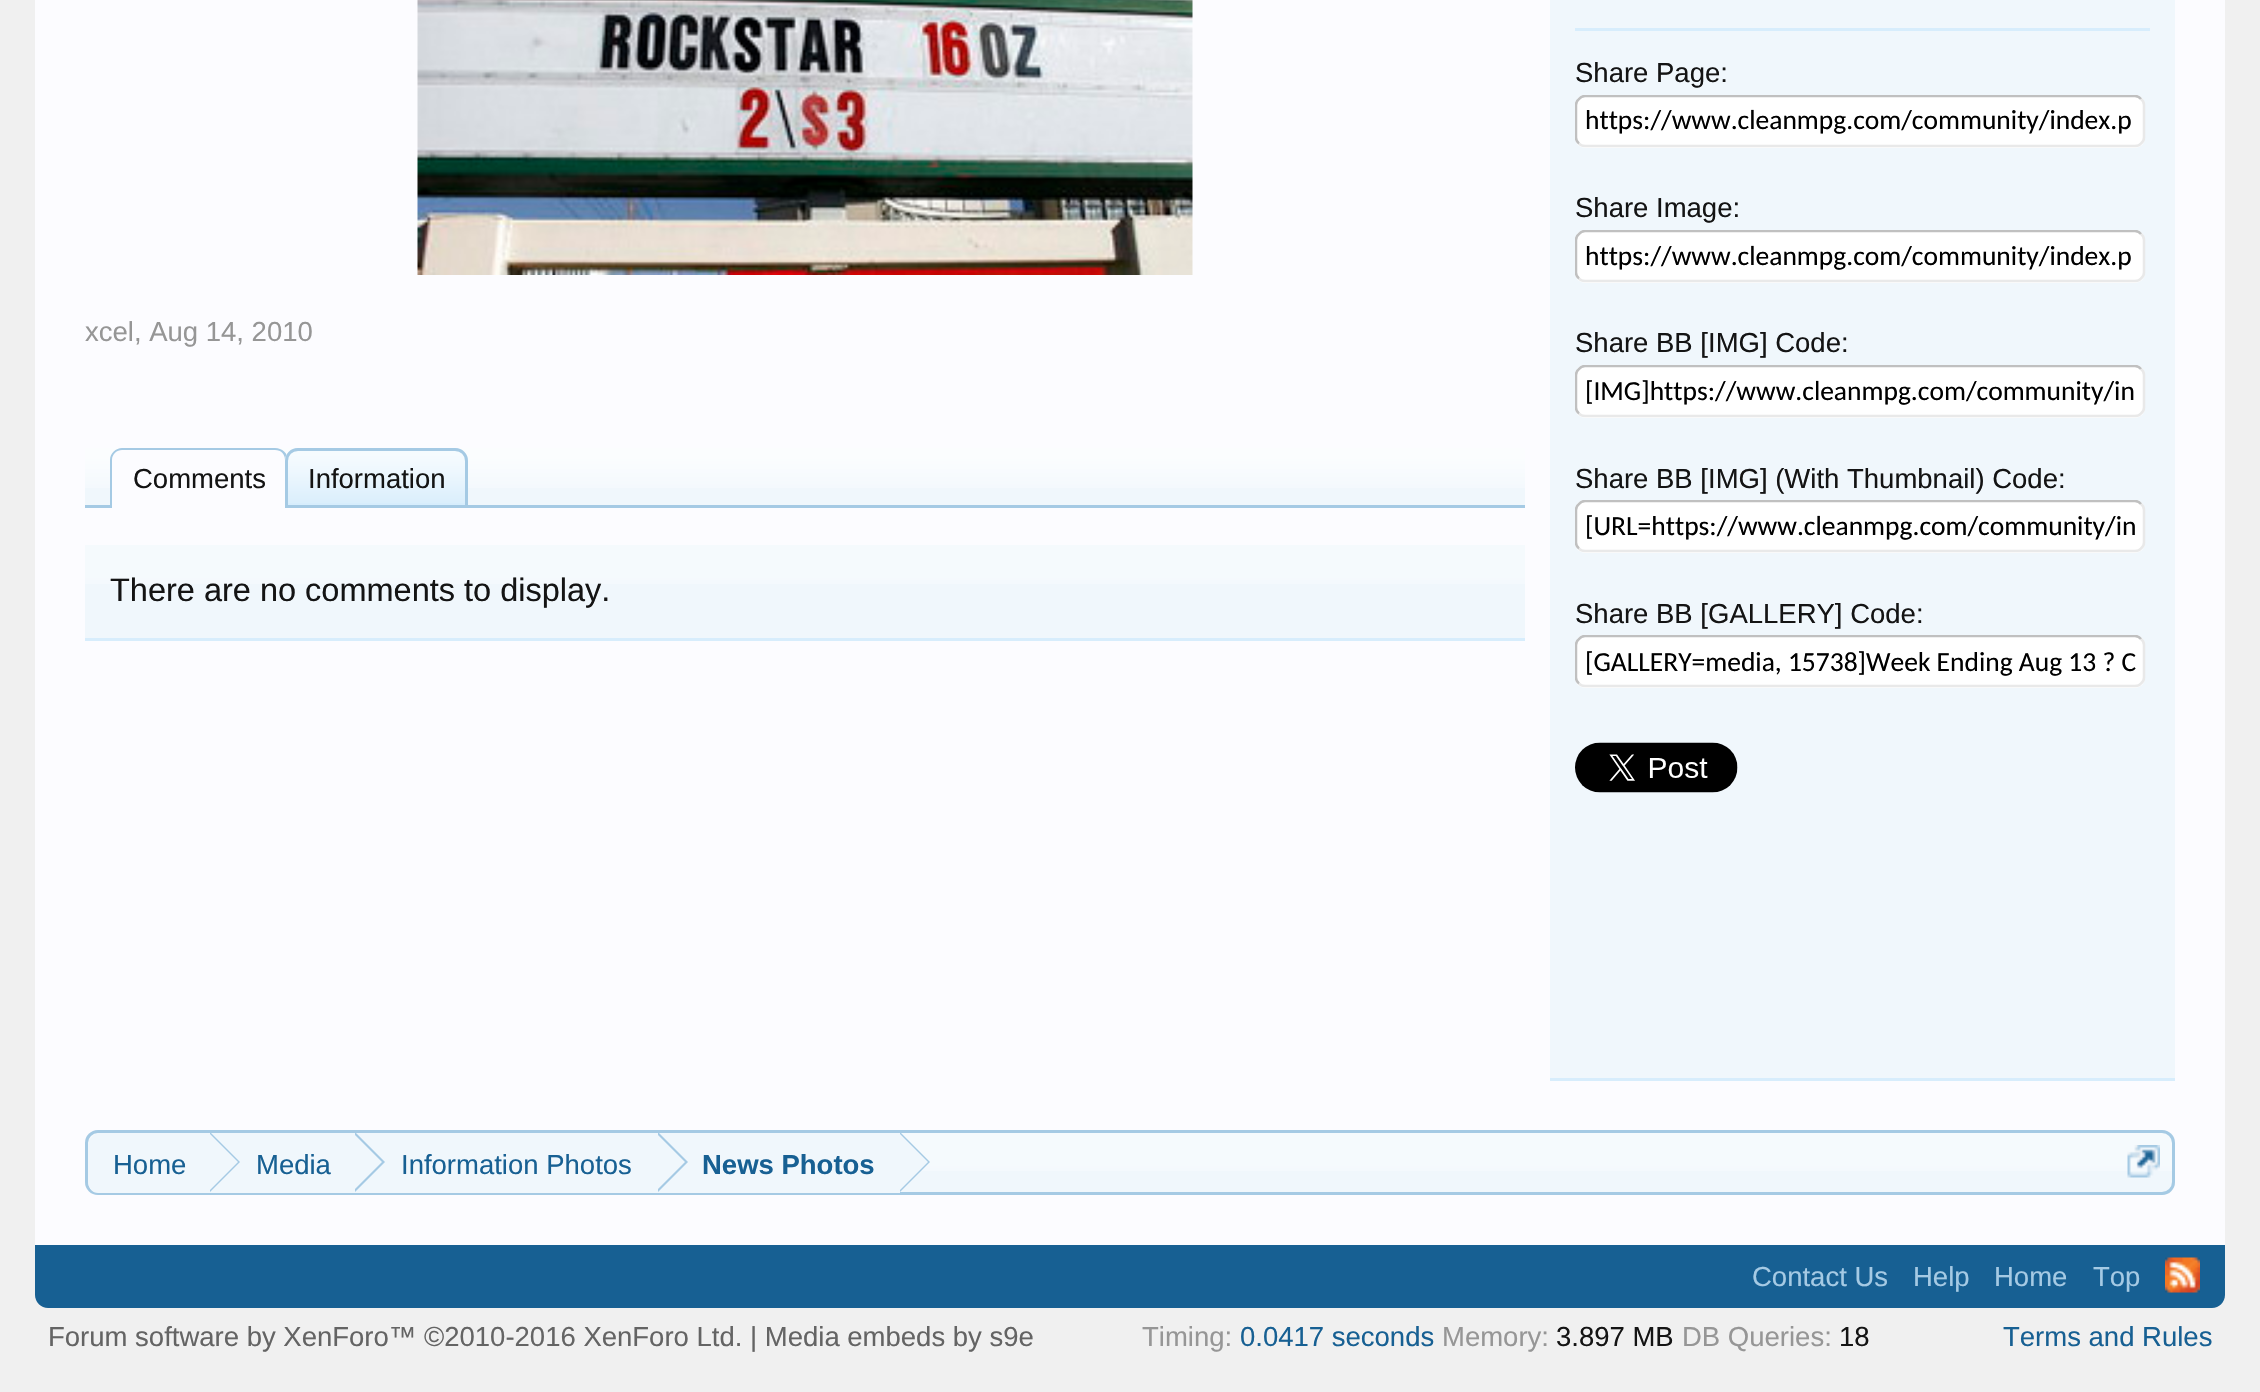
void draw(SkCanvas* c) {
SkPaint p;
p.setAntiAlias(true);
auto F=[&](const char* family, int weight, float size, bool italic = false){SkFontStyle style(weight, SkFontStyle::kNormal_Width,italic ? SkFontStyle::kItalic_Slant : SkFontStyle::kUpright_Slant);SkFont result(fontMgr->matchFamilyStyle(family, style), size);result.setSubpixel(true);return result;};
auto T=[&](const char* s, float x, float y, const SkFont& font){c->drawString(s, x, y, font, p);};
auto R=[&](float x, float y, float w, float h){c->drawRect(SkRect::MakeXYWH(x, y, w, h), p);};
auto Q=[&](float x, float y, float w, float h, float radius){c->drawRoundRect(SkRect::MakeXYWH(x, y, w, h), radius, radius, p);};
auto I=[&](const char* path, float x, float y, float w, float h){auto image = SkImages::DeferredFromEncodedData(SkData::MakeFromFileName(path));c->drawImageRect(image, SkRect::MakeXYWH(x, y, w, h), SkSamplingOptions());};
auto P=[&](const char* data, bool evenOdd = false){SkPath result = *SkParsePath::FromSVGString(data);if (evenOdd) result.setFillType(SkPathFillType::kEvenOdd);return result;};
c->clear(0xfff0f0f0);
p.setColor(0xfffcfcff);
R(35,0,2190,1245);
I("1.png",417,0,776,275);
auto f1 = F("Liberation Sans",400,27.5);
p.setColor(0xff969696);
T("xcel, Aug 14, 2010",85,341,f1);
p.setColor(0xfff0f7fc);
R(85,448,1440,57);
I("2.png",85,448,1440,40);
p.setColor(0xffa5cae4);
R(85,505,1440,3);
p.setColor(0xfffcfcff);
c->drawPath(P("M123 448h152c7 0 13 6 13 13v47h-178v-47c0-7 6-13 13-13z"),p);
p.setColor(0xffa5cae4);
c->drawPath(P("M122 448h153c7 0 13 5 13 12v48h-178v-48c0-7 6-12 12-12zm0 2h153c6 0 10 4 10 10v48h-173v-48c0-6 5-10 10-10z",true),p);
p.setColor(0xff141414);
T("Comments",133,488,f1);
p.setColor(0xffd7edfc);
c->drawPath(P("M298 448h157c7 0 13 6 13 13v47h-183v-47c0-7 6-13 13-13z"),p);
I("3.png",285,450,183,53);
p.setStroke(true);
p.setStrokeWidth(3);
p.setColor(0xffa5cae4);
c->drawPath(P("M298 449.5h157c6.5 0 11.5 5 11.5 11.5v45.5h-180v-45.5c0-6.5 5-11.5 11.5-11.5z"),p);
p.setStroke(false);
p.setColor(0xff141414);
T("Information",308,488,f1);
p.setColor(0xfff0f7fc);
R(85,545,1440,93);
I("4.png",85,545,1440,39);
p.setColor(0xffd7edfc);
R(85,638,1440,3);
auto f2 = F("Liberation Sans",400,32.5);
p.setColor(0xff141414);
T("There are no comments to display.",110,601,f2);
p.setColor(0xfff0f7fc);
R(1550,0,625,1078);
p.setColor(0xffd7edfc);
R(1550,1078,625,3);
R(1575,28,575,3);
p.setColor(0xff141414);
T("Share Page:",1575,82,f1);
p.setColor(0xffffffff);
Q(1575,95,570,53,10);
p.setStroke(true);
p.setStrokeWidth(2.5);
p.setColor(0xffe9e9e9);
c->drawPath(P("M2141 99c2 1.5 3 3.5 3 6v32.5c0 2.5-1 4.5-3 6c-1.5 2-3.5 2.5-6 2.5h-550c-2.5 0-4.5-.5-6-2.5"),p);
c->save();
c->clipRect(SkRect::MakeXYWH(1575,95,575,58));
p.setColor(0xffc0c0c0);
c->drawPath(P("M1579 143.5c-2-1.5-3-3.5-3-6v-32.5c0-2.5 1-4.5 3-6c1.5-2 3.5-3 6-3h550c2.5 0 4.5 1 6 3"),p);
c->restore();
auto f3 = F("Carlito",400,27.5);
p.setStroke(false);
p.setColor(0xff000000);
T("https://www.cleanmpg.com/community/index.p",1585,129,f3);
p.setColor(0xff141414);
T("Share Image:",1575,217,f1);
p.setColor(0xffffffff);
Q(1575,230,570,53,10);
p.setStroke(true);
p.setColor(0xffe9e9e9);
c->drawPath(P("M2141 234c2 1.5 3 3.5 3 6v32.5c0 2.5-1 4.5-3 6c-1.5 2-3.5 2.5-6 2.5h-550c-2.5 0-4.5-.5-6-2.5"),p);
c->save();
c->clipRect(SkRect::MakeXYWH(1575,230,575,58));
p.setColor(0xffc0c0c0);
c->drawPath(P("M1579 278.5c-2-1.5-3-3.5-3-6v-32.5c0-2.5 1-4.5 3-6c1.5-2 3.5-3 6-3h550c2.5 0 4.5 1 6 3"),p);
c->restore();
p.setStroke(false);
p.setColor(0xff000000);
T("https://www.cleanmpg.com/community/index.p",1585,265,f3);
p.setColor(0xff141414);
T("Share BB [IMG] Code:",1575,352,f1);
p.setColor(0xffffffff);
Q(1575,365,570,53,10);
p.setStroke(true);
p.setColor(0xffe9e9e9);
c->drawPath(P("M2141 369c2 1.5 3 3.5 3 6v32.5c0 2.5-1 4.5-3 6c-1.5 2-3.5 2.5-6 2.5h-550c-2.5 0-4.5-.5-6-2.5"),p);
c->save();
c->clipRect(SkRect::MakeXYWH(1575,365,575,58));
p.setColor(0xffc0c0c0);
c->drawPath(P("M1579 413.5c-2-1.5-3-3.5-3-6v-32.5c0-2.5 1-4.5 3-6c1.5-2 3.5-3 6-3h550c2.5 0 4.5 1 6 3"),p);
c->restore();
p.setStroke(false);
p.setColor(0xff000000);
T("[IMG]https://www.cleanmpg.com/community/in",1585,400,f3);
p.setColor(0xff141414);
T("Share BB [IMG] (With Thumbnail) Code:",1575,488,f1);
p.setColor(0xffffffff);
Q(1575,500,570,53,10);
p.setStroke(true);
p.setColor(0xffe9e9e9);
c->drawPath(P("M2141 504c2 1.5 3 3.5 3 6v32.5c0 2.5-1 4.5-3 6c-1.5 2-3.5 2.5-6 2.5h-550c-2.5 0-4.5-.5-6-2.5"),p);
c->save();
c->clipRect(SkRect::MakeXYWH(1575,500,575,58));
p.setColor(0xffc0c0c0);
c->drawPath(P("M1579 548.5c-2-1.5-3-3.5-3-6v-32.5c0-2.5 1-4.5 3-6c1.5-2 3.5-3 6-3h550c2.5 0 4.5 1 6 3"),p);
c->restore();
p.setStroke(false);
p.setColor(0xff000000);
T("[URL=https://www.cleanmpg.com/community/in",1585,535,f3);
p.setColor(0xff141414);
T("Share BB [GALLERY] Code:",1575,623,f1);
p.setColor(0xffffffff);
Q(1575,635,570,53,10);
p.setStroke(true);
p.setColor(0xffe9e9e9);
c->drawPath(P("M2141 639c2 1.5 3 3.5 3 6v32.5c0 2.5-1 4.5-3 6c-1.5 2-3.5 2.5-6 2.5h-550c-2.5 0-4.5-.5-6-2.5"),p);
c->save();
c->clipRect(SkRect::MakeXYWH(1575,635,575,58));
p.setColor(0xffc0c0c0);
c->drawPath(P("M1579 683.5c-2-1.5-3-3.5-3-6v-32.5c0-2.5 1-4.5 3-6c1.5-2 3.5-3 6-3h550c2.5 0 4.5 1 6 3"),p);
c->restore();
p.setStroke(false);
p.setColor(0xff000000);
T("[GALLERY=media, 15738]Week Ending Aug 13 ? C",1585,671,f3);
I("5.png",1575,742,163,51);
p.setColor(0xfff0f7fc);
Q(85,1130,2090,65,13);
I("6.png",85,1133,2090,38);
p.setStroke(true);
p.setStrokeWidth(3);
p.setColor(0xffa5cae4);
c->drawRoundRect(SkRect::MakeXYWH(86.5,1131.5,2087,62),11.5,11.5,p);
c->save();
c->clipPath(P("M98 1133h2065c5.5 0 10 4.5 10 10v40c0 5.5-4.5 10-10 10h-2065c-5.5 0-10-4.5-10-10v-40c0-5.5 4.5-10 10-10z"),true);
p.setStroke(false);
p.setColor(0xfff0f7fc);
c->drawPath(P("M101 1133h109v62h-109c-7 0-13-6-13-13v-36c0-7 6-13 13-13z"),p);
c->restore();
p.setColor(0xff176093);
T("Home",113,1174,f1);
p.setColor(0xfff0f7fc);
R(210,1133,690,60);
p.setColor(0xffa5cae4);
c->drawPath(P("M210 1192l30-30l-29-29h-1z"),p);
p.setColor(0xfff0f7fc);
c->drawPath(P("M208 1192l30-30l-29-29h-1z"),p);
p.setColor(0xff176093);
T("Media",256,1174,f1);
p.setColor(0xffa5cae4);
c->drawPath(P("M355 1192l30-30l-29-29h-1z"),p);
p.setColor(0xfff0f7fc);
c->drawPath(P("M352 1192l30-30l-29-29h-1z"),p);
p.setColor(0xff176093);
T("Information Photos",401,1174,f1);
p.setColor(0xffa5cae4);
c->drawPath(P("M658 1192l30-30l-29-29h-1z"),p);
p.setColor(0xfff0f7fc);
c->drawPath(P("M655 1192l30-30l-29-29h-1z"),p);
auto f4 = F("Liberation Sans",700,27.5);
p.setColor(0xff176093);
T("News Photos",702,1174,f4);
p.setColor(0xffa5cae4);
c->drawPath(P("M900 1192l30-30l-29-29h-1z"),p);
p.setColor(0xfff0f7fc);
c->drawPath(P("M898 1192l30-30l-29-29h-1z"),p);
I("7.png",2127,1145,33,33);
p.setColor(0xff176093);
c->drawPath(P("M35 1245h2190v50c0 7-6 13-13 13h-2164c-7 0-13-6-13-13z"),p);
p.setColor(0xffa5cae4);
T("Contact Us",1752,1286,f1);
T("Help",1913,1286,f1);
T("Home",1994,1286,f1);
T("Top",2093,1286,f1);
I("8.png",2165,1257,35,36);
p.setColor(0xff646464);
T("Forum software by XenForo™ ©2010-2016 XenForo Ltd. | Media embeds by s9e",48,1346,f1);
p.setColor(0xff969696);
T("Timing:",1142,1346,f1);
p.setColor(0xff176093);
T("0.0417 seconds",1240,1346,f1);
p.setColor(0xff969696);
T("Memory:",1442,1346,f1);
p.setColor(0xff141414);
T("3.897 MB",1556,1346,f1);
p.setColor(0xff969696);
T("DB Queries:",1682,1346,f1);
p.setColor(0xff141414);
T("18",1839,1346,f1);
p.setColor(0xff176093);
T("Terms and Rules",2003,1346,f1);
}
